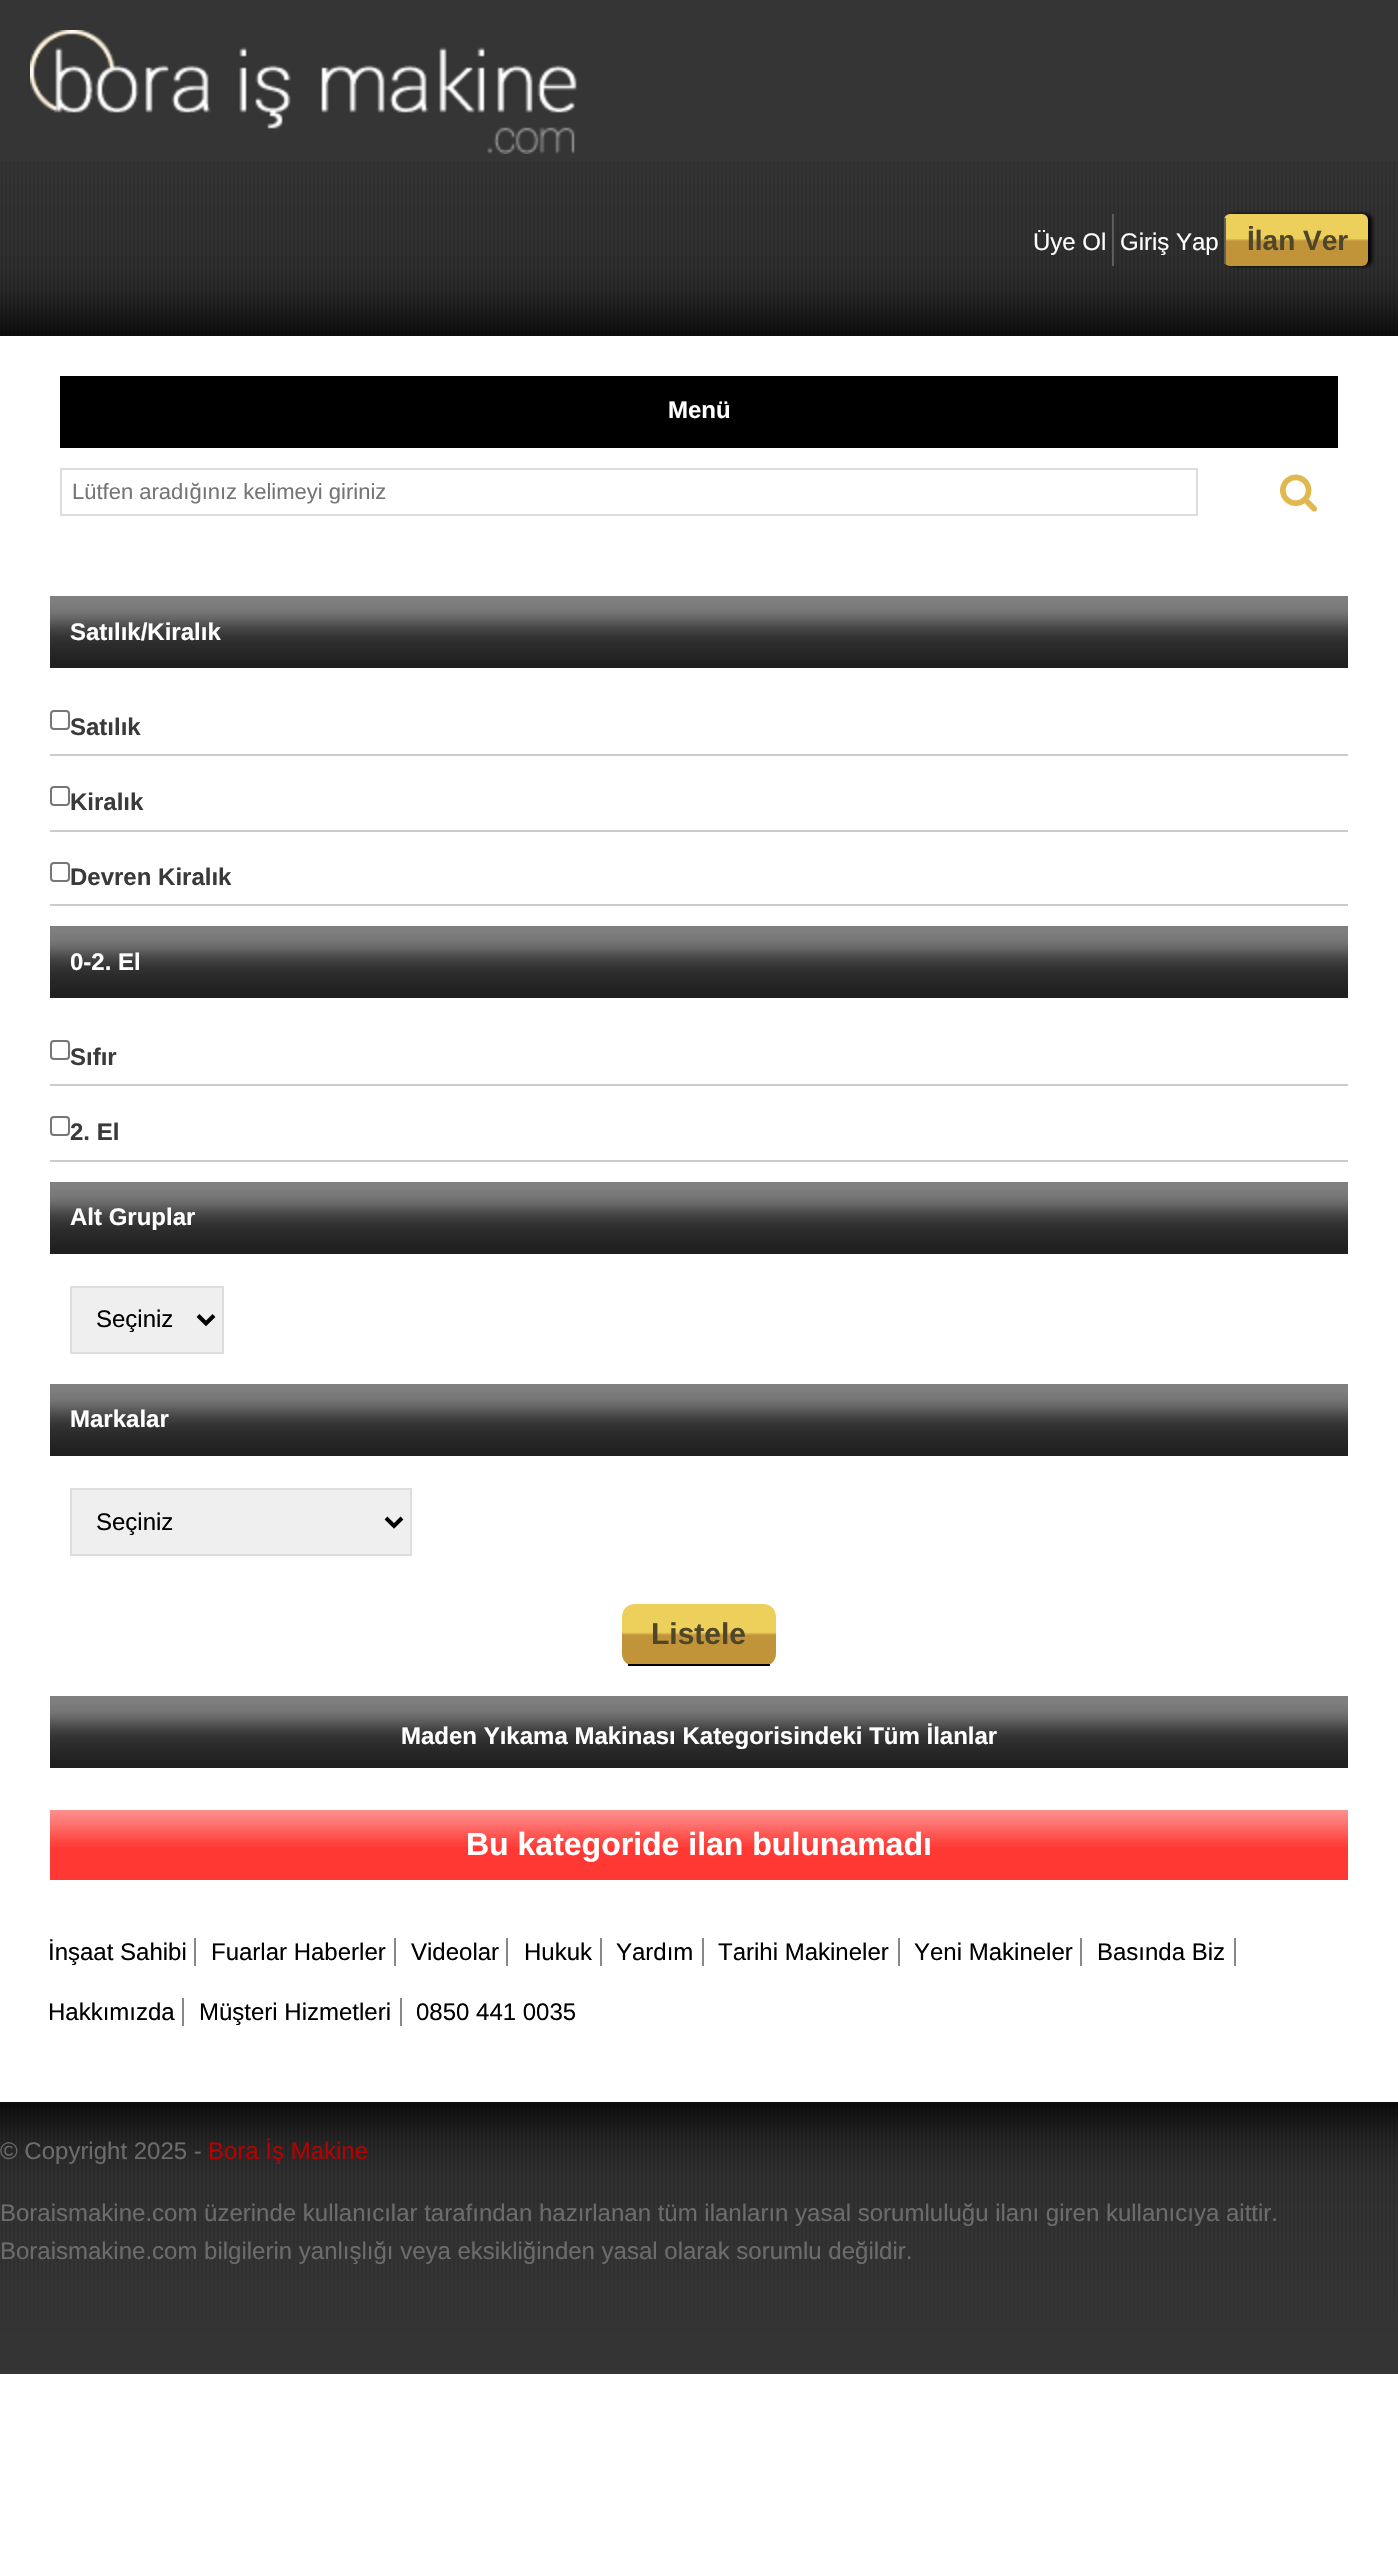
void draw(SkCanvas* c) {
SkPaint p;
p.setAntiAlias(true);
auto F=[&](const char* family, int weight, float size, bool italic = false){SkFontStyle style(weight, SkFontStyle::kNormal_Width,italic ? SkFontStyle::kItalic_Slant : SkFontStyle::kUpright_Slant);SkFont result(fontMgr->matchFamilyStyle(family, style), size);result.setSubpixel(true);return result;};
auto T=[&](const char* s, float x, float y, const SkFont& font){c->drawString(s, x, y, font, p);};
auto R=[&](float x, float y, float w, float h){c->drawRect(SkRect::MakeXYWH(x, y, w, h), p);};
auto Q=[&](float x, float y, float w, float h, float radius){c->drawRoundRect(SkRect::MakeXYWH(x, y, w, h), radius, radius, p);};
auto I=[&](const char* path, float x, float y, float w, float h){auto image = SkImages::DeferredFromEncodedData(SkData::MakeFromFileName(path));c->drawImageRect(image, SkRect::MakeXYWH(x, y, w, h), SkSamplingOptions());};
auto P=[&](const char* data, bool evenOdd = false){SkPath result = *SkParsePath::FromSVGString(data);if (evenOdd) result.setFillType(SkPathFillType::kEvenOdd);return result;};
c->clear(0xffffffff);
p.setColor(0xff353535);
R(0,0,1398,161);
I("1.png",0,161,1398,175);
I("2.png",30,30,547,124);
auto f1 = F("Liberation Sans",400,24);
p.setColor(0xffffffff);
T("Üye Ol",1033,250,f1);
p.setColor(0xff5d5d5f);
R(1112,214,2,52);
p.setColor(0xffffffff);
T("Giriş Yap",1120,250,f1);
p.setColor(0xff000000);
p.setMaskFilter(SkMaskFilter::MakeBlur(kNormal_SkBlurStyle, 2));
c->drawRoundRect(SkRect::MakeXYWH(1228,214,144,52),6,6,p);
p.setMaskFilter(nullptr);
{
const SkColor colors[] = {0xffedcf5b,0xffc2943a};
const float stops[] = {.47,.52};
const SkPoint ends[] = {{1297,214}, {1297,266}};
p.setShader(SkGradientShader::MakeLinear(ends, colors, stops, 2, SkTileMode::kClamp));
p.setAlpha(255);
}
Q(1224,214,144,52,6);
p.setShader(nullptr);
p.setColor(0xff5d5d5f);
R(1224,218,2,46);
auto f2 = F("Liberation Sans",700,28);
p.setColor(0xff4f4629);
T("İlan Ver",1247,250,f2);
p.setColor(0xff000000);
R(60,376,1278,72);
auto f3 = F("Liberation Sans",700,24);
p.setColor(0xffffffff);
T("Menü",668,418,f3);
p.setStroke(true);
p.setStrokeWidth(2);
p.setColor(0xffdddddd);
c->drawRect(SkRect::MakeXYWH(61,469,1136,46),p);
auto f4 = F("Liberation Sans",400,22);
p.setStroke(false);
p.setColor(0xff757575);
T("Lütfen aradığınız kelimeyi giriniz",72,499,f4);
I("3.png",1280,474,38,38);
I("4.png",50,596,1298,72);
p.setColor(0xffffffff);
T("Satılık/Kiralık",70,640,f3);
p.setColor(0xffcccccc);
R(50,754,1298,2);
p.setStroke(true);
p.setColor(0xff767676);
c->drawRoundRect(SkRect::MakeXYWH(51,711,18,18),3,3,p);
p.setStroke(false);
p.setColor(0xff3a3a3a);
T("Satılık",70,735,f3);
p.setColor(0xffcccccc);
R(50,830,1298,2);
p.setStroke(true);
p.setColor(0xff767676);
c->drawRoundRect(SkRect::MakeXYWH(51,787,18,18),3,3,p);
p.setStroke(false);
p.setColor(0xff3a3a3a);
T("Kiralık",70,810,f3);
p.setColor(0xffcccccc);
R(50,904,1298,2);
p.setStroke(true);
p.setColor(0xff767676);
c->drawRoundRect(SkRect::MakeXYWH(51,863,18,18),3,3,p);
p.setStroke(false);
p.setColor(0xff3a3a3a);
T("Devren Kiralık",70,885,f3);
I("4.png",50,926,1298,72);
p.setColor(0xffffffff);
T("0-2. El",70,970,f3);
p.setColor(0xffcccccc);
R(50,1084,1298,2);
p.setStroke(true);
p.setColor(0xff767676);
c->drawRoundRect(SkRect::MakeXYWH(51,1041,18,18),3,3,p);
p.setStroke(false);
p.setColor(0xff3a3a3a);
T("Sıfır",70,1065,f3);
p.setColor(0xffcccccc);
R(50,1160,1298,2);
p.setStroke(true);
p.setColor(0xff767676);
c->drawRoundRect(SkRect::MakeXYWH(51,1117,18,18),3,3,p);
p.setStroke(false);
p.setColor(0xff3a3a3a);
T("2. El",70,1140,f3);
I("4.png",50,1182,1298,72);
p.setColor(0xffffffff);
T("Alt Gruplar",70,1225,f3);
p.setColor(0xffefefef);
c->drawRect(SkRect::MakeXYWH(71,1287,152,66),p);
p.setStroke(true);
p.setColor(0xffdddddd);
c->drawRect(SkRect::MakeXYWH(71,1287,152,66),p);
p.setStrokeWidth(4);
p.setColor(0xff000000);
c->drawPath(P("M198 1315.5l8 8l8-8"),p);
p.setStroke(false);
T("Seçiniz",96,1327,f1);
I("4.png",50,1384,1298,72);
p.setColor(0xffffffff);
T("Markalar",70,1427,f3);
p.setColor(0xffefefef);
c->drawRect(SkRect::MakeXYWH(71,1489,340,66),p);
p.setStroke(true);
p.setStrokeWidth(2);
p.setColor(0xffdddddd);
c->drawRect(SkRect::MakeXYWH(71,1489,340,66),p);
p.setStrokeWidth(4);
p.setColor(0xff000000);
c->drawPath(P("M386 1518l8 8l8-8"),p);
p.setStroke(false);
T("Seçiniz",96,1530,f1);
c->save();
c->clipPath(P("M634 1604h130c6.5 0 12 5.5 12 12v38c0 6.5-5.5 12-12 12h-130c-6.5 0-12-5.5-12-12v-38c0-6.5 5.5-12 12-12z"),true);
{
const SkColor colors[] = {0xffedcf5b,0xffc2943a};
const float stops[] = {.47,.52};
const SkPoint ends[] = {{699,1604}, {699,1664}};
p.setShader(SkGradientShader::MakeLinear(ends, colors, stops, 2, SkTileMode::kClamp));
p.setAlpha(255);
}
c->drawPath(P("M634 1604h130c6.5 0 12 5.5 12 12v48h-154v-48c0-6.5 5.5-12 12-12z"),p);
c->restore();
p.setShader(nullptr);
p.setColor(0xff000000);
R(628,1664,142,2);
auto f5 = F("Liberation Sans",700,30);
p.setColor(0xff4f4629);
T("Listele",651,1644,f5);
I("4.png",50,1696,1298,72);
p.setColor(0xffffffff);
T("Maden Yıkama Makinası Kategorisindeki Tüm İlanlar",401,1744,f3);
p.setColor(0xffff3833);
R(50,1847,1298,33);
I("5.png",50,1810,1298,37);
auto f6 = F("Liberation Sans",700,32);
p.setColor(0xffffffff);
T("Bu kategoride ilan bulunamadı",466,1855,f6);
p.setColor(0xff000000);
T("İnşaat Sahibi",48,1960,f1);
p.setColor(0xff888888);
R(194,1938,2,28);
p.setColor(0xff000000);
T("Fuarlar Haberler",211,1960,f1);
p.setColor(0xff888888);
R(394,1938,2,28);
p.setColor(0xff000000);
T("Videolar",411,1960,f1);
p.setColor(0xff888888);
R(506,1938,2,28);
p.setColor(0xff000000);
T("Hukuk",524,1960,f1);
p.setColor(0xff888888);
R(600,1938,2,28);
p.setColor(0xff000000);
T("Yardım",616,1960,f1);
p.setColor(0xff888888);
R(702,1938,2,28);
p.setColor(0xff000000);
T("Tarihi Makineler",718,1960,f1);
p.setColor(0xff888888);
R(898,1938,2,28);
p.setColor(0xff000000);
T("Yeni Makineler",914,1960,f1);
p.setColor(0xff888888);
R(1080,1938,2,28);
p.setColor(0xff000000);
T("Basında Biz",1097,1960,f1);
p.setColor(0xff888888);
R(1234,1938,2,28);
p.setColor(0xff000000);
T("Hakkımızda",48,2020,f1);
p.setColor(0xff888888);
R(182,1998,2,28);
p.setColor(0xff000000);
T("Müşteri Hizmetleri",199,2020,f1);
p.setColor(0xff888888);
R(400,1998,2,28);
p.setColor(0xff000000);
T("0850 441 0035",416,2020,f1);
I("6.png",0,2102,1398,272);
p.setColor(0xff6c6c6c);
T("© Copyright 2025 -",0,2159,f1);
p.setColor(0xffb70000);
T("Bora İş Makine",208,2159,f1);
p.setColor(0xff6c6c6c);
T("Boraismakine.com üzerinde kullanıcılar tarafından hazırlanan tüm ilanların yasal sorumluluğu ilanı giren kullanıcıya aittir.",0,2221,f1);
T("Boraismakine.com bilgilerin yanlışlığı veya eksikliğinden yasal olarak sorumlu değildir.",0,2259,f1);
}
